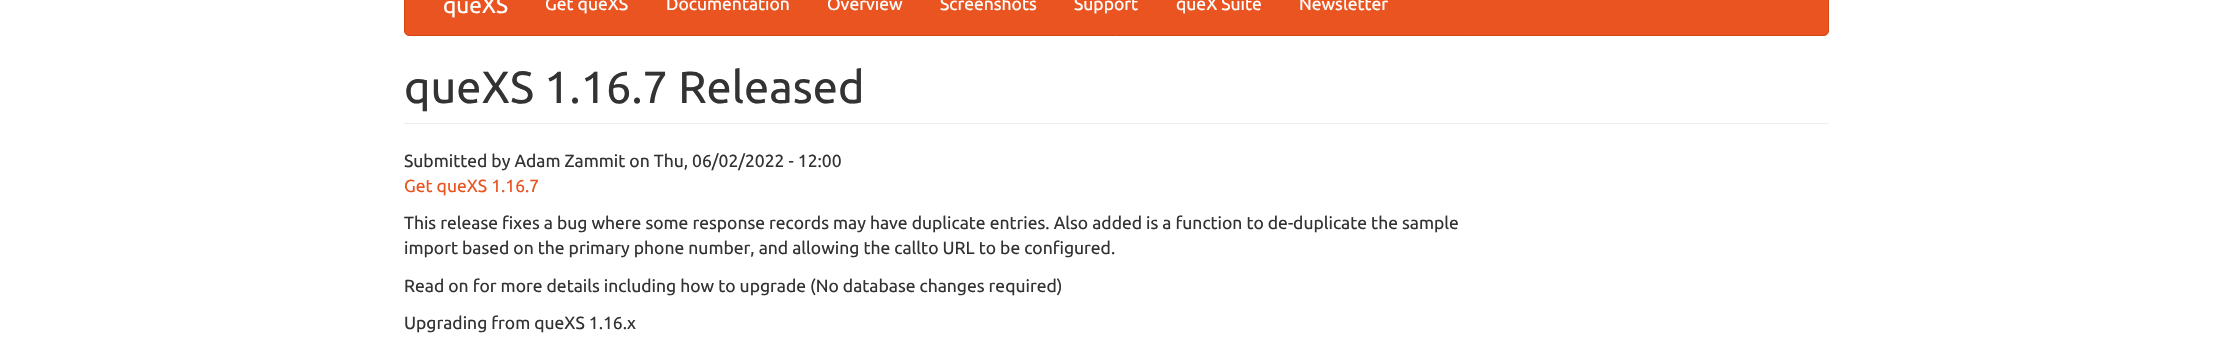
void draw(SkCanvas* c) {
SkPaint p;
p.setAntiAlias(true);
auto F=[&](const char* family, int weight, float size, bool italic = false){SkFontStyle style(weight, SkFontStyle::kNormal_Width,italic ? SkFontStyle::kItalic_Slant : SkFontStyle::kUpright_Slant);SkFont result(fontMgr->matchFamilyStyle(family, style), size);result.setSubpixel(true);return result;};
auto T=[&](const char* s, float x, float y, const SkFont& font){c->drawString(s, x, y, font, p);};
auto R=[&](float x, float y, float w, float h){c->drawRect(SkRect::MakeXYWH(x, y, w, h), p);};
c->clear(0xffffffff);
p.setColor(0xffe95420);
c->drawRoundRect(SkRect::MakeXYWH(404.5,-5.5,1424,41),4.5,4.5,p);
p.setStroke(true);
p.setStrokeWidth(1);
p.setColor(0xffd34615);
c->drawRoundRect(SkRect::MakeXYWH(404.5,-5.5,1424,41),4.5,4.5,p);
auto f1 = F("Ubuntu",400,22.5);
p.setStroke(false);
p.setColor(0xffffffff);
T("queXS",443,13,f1);
auto f2 = F("Ubuntu",400,17.5);
T("Get queXS",545,10,f2);
T("Documentation",666,10,f2);
T("Overview",827,10,f2);
T("Screenshots",940,10,f2);
T("Support",1074,10,f2);
T("queX Suite",1176,10,f2);
T("Newsletter",1299,10,f2);
p.setColor(0xffeeeeee);
R(404,123,1425,1);
auto f3 = F("Ubuntu",400,45);
p.setColor(0xff333333);
T("queXS 1.16.7 Released",404,103,f3);
T("Submitted by Adam Zammit on Thu, 06/02/2022 - 12:00",404,167,f2);
p.setColor(0xffe95420);
T("Get queXS 1.16.7",404,192,f2);
p.setColor(0xff333333);
T("This release fixes a bug where some response records may have duplicate entries. Also added is a function to de-duplicate the sample",404,229,f2);
T("import based on the primary phone number, and allowing the callto URL to be configured.",404,254,f2);
T("Read on for more details including how to upgrade (No database changes required)",404,292,f2);
T("Upgrading from queXS 1.16.x",404,329,f2);
}
